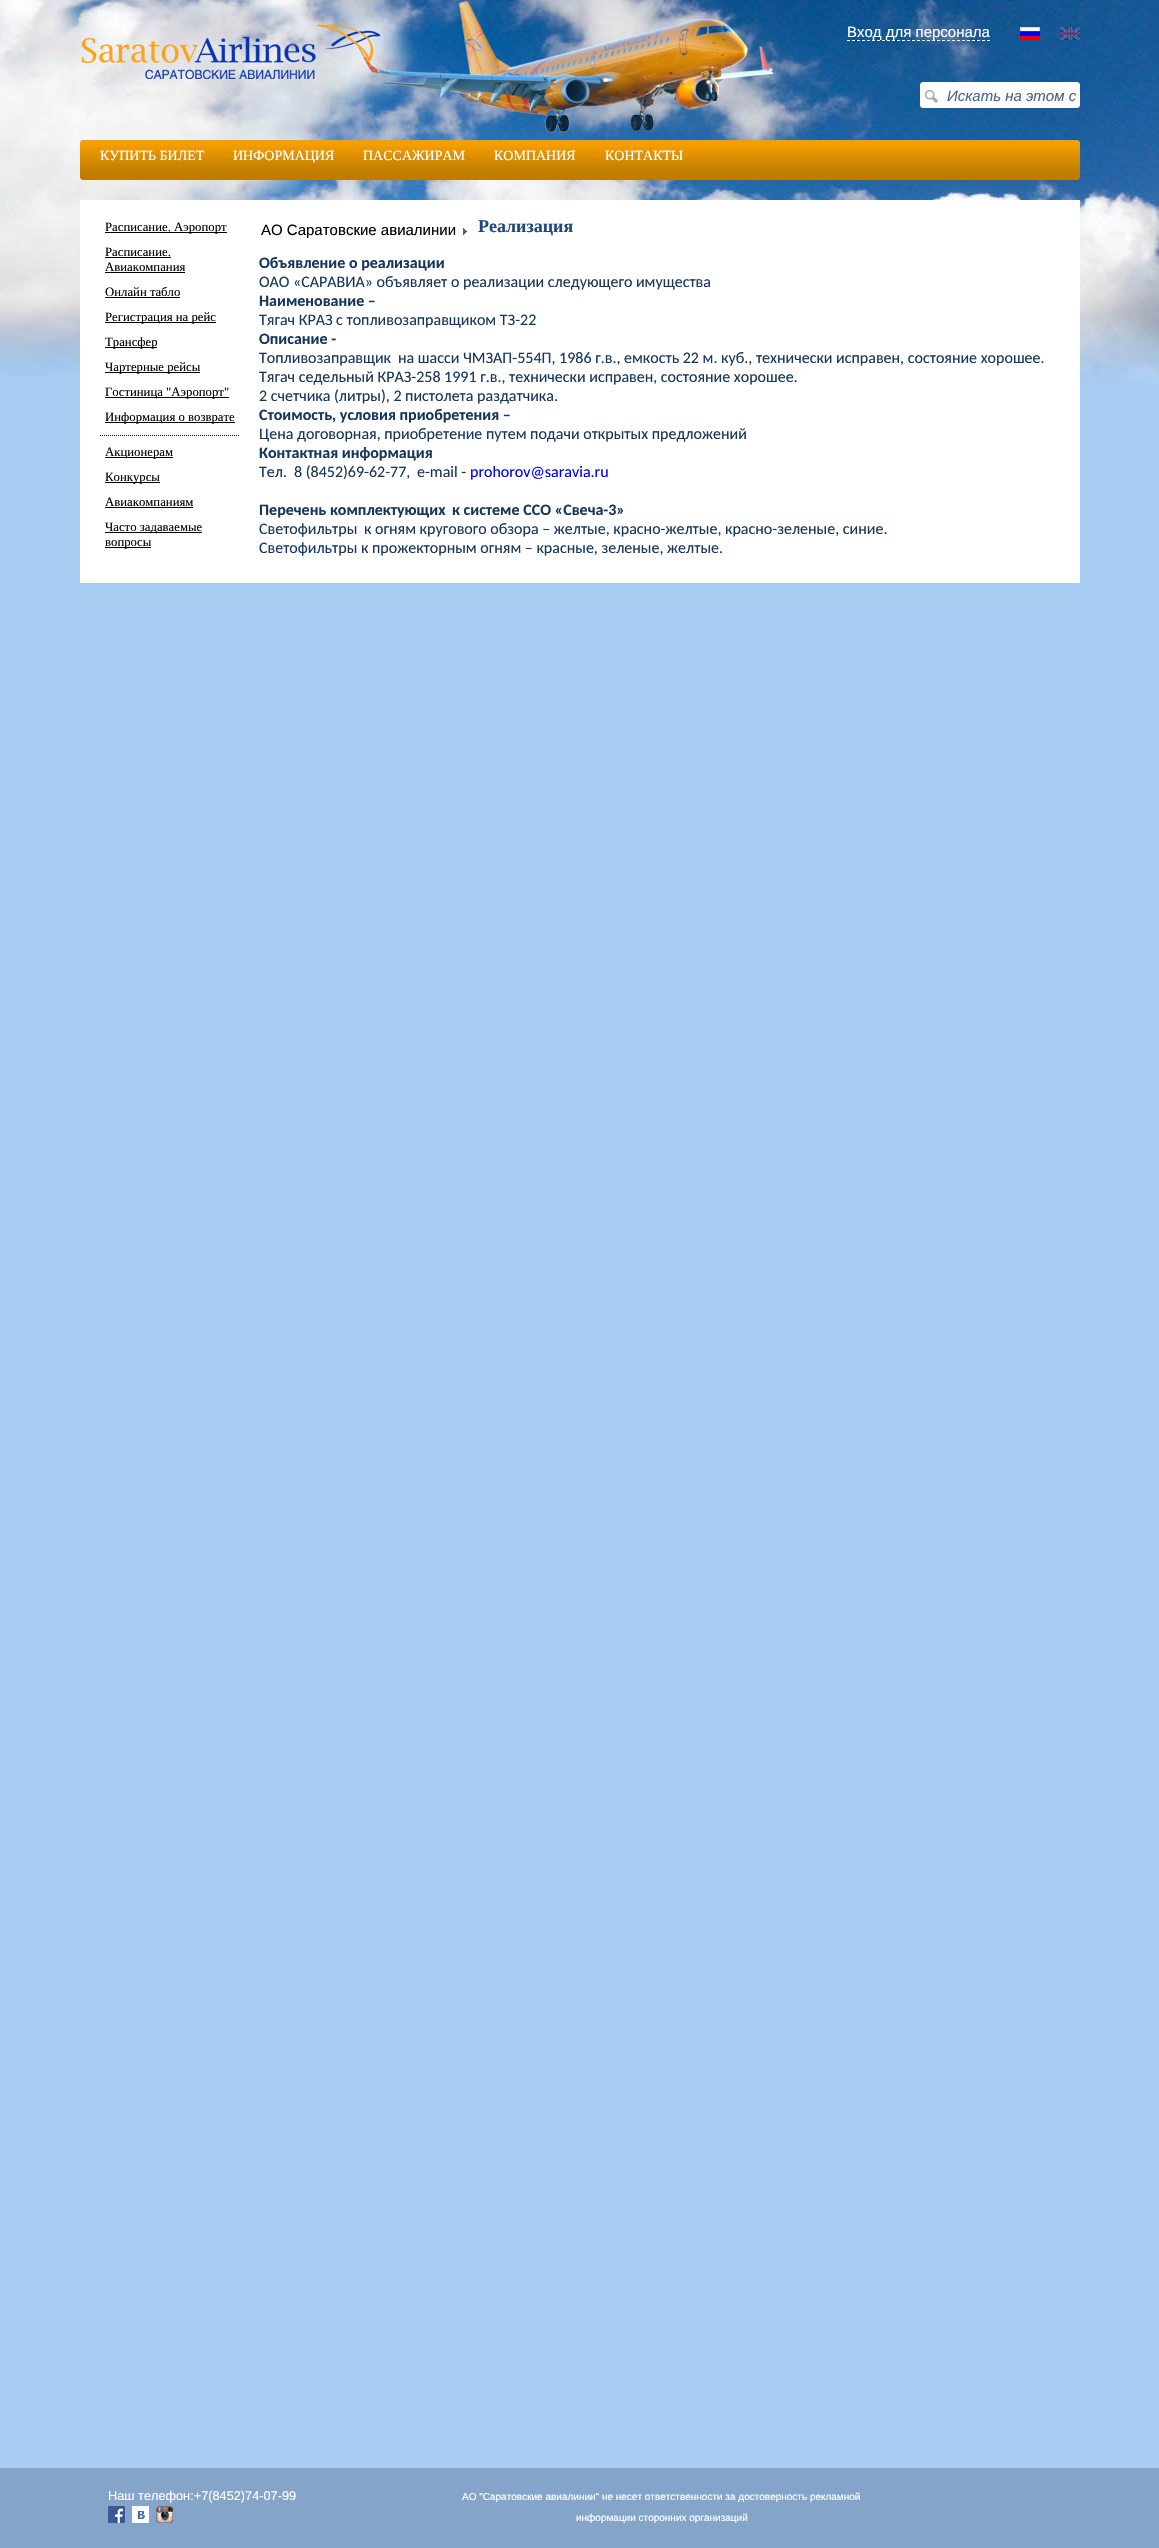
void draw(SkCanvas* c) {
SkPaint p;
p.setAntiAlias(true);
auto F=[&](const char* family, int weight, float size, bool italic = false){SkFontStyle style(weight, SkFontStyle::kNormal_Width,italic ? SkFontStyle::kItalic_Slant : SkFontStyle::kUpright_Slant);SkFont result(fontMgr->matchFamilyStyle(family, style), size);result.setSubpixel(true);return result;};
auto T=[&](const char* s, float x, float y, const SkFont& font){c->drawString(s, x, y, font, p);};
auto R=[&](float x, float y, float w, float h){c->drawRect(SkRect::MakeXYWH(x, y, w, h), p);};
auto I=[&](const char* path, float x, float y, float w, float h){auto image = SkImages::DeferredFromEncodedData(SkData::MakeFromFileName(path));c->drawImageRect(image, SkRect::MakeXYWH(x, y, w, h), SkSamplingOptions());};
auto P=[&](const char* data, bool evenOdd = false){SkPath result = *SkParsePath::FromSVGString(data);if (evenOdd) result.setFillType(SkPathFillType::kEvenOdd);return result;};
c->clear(0xffa8cdf3);
I("1.png",0,0,1159,384);
I("2.png",357,0,417,133);
I("3.png",81,24,300,55);
p.setStroke(true);
p.setStrokeWidth(1);
p.setColor(0xffffffff);
p.setPathEffect(SkDashPathEffect::Make({{3,2}}, 0));
c->drawPath(P("M847 40.5h143"),p);
p.setPathEffect(nullptr);
auto f1 = F("Liberation Sans",400,15);
p.setStroke(false);
T("Вход для персонала",847,37,f1);
I("4.png",1020,27,20,13);
I("5.png",1060,27,20,13);
I("6.png",920,82,160,26);
auto f2 = F("Liberation Sans",400,15,true);
p.setColor(0xff476382);
T("Искать на этом с",947,101,f2);
I("7.png",80,140,1000,40);
auto f3 = F("Liberation Serif",400,14);
p.setColor(0xffffffff);
T("КУПИТЬ БИЛЕТ",100,160,f3);
T("ИНФОРМАЦИЯ",233,160,f3);
T("ПАССАЖИРАМ",363,160,f3);
T("КОМПАНИЯ",494,160,f3);
T("КОНТАКТЫ",605,160,f3);
R(80,200,1000,5);
R(80,205,1000,378);
p.setColor(0xff000000);
R(105,232,122,1);
auto f4 = F("Liberation Serif",400,12.75);
T("Расписание. Аэропорт",105,231,f4);
T("Расписание.",105,256,f4);
R(105,257,66,1);
T("Авиакомпания",105,271,f4);
R(105,272,80,1);
T("Онлайн табло",105,296,f4);
R(105,297,75,1);
R(105,322,111,1);
T("Регистрация на рейс",105,321,f4);
R(105,347,52,1);
T("Трансфер",105,346,f4);
R(105,372,95,1);
T("Чартерные рейсы",105,371,f4);
R(105,397,124,1);
T("Гостиница \"Аэропорт\"",105,396,f4);
R(105,422,130,1);
T("Информация о возврате",105,421,f4);
p.setStroke(true);
p.setPathEffect(SkDashPathEffect::Make({{1,1}}, 0));
c->drawPath(P("M100 435.5h140"),p);
p.setPathEffect(nullptr);
p.setStroke(false);
R(105,457,68,1);
T("Акционерам",105,456,f4);
R(105,482,55,1);
T("Конкурсы",105,481,f4);
T("Авиакомпаниям",105,506,f4);
R(105,507,88,1);
R(105,532,97,1);
T("Часто задаваемые",105,531,f4);
R(105,547,46,1);
T("вопросы",105,546,f4);
T("АО Саратовские авиалинии",261,235,f1);
I("8.png",463,228,4,7);
auto f5 = F("Liberation Serif",700,18);
p.setColor(0xff1f497d);
T("Реализация",478,232,f5);
auto f6 = F("Carlito",700,16);
p.setColor(0xff17365d);
T("Объявление о реализации",259,268,f6);
auto f7 = F("Carlito",400,16);
T("ОАО «САРАВИА» объявляет о реализации следующего имущества",259,287,f7);
T("Наименование –",259,306,f6);
T("Тягач КРАЗ с топливозаправщиком ТЗ-22",259,325,f7);
T("Описание -",259,344,f6);
T("Топливозаправщик",259,363,f7);
T("на шасси ЧМЗАП-554П, 1986 г.в., емкость 22 м. куб., технически исправен, состояние хорошее.",398,363,f7);
T("Тягач седельный КРАЗ-258 1991 г.в., технически исправен, состояние хорошее.",259,382,f7);
T("2 счетчика (литры), 2 пистолета раздатчика.",259,401,f7);
T("Стоимость, условия приобретения –",259,420,f6);
T("Цена договорная, приобретение путем подачи открытых предложений",259,439,f7);
T("Контактная информация",259,458,f6);
T("Тел.",259,477,f7);
T("8 (8452)69-62-77,",294,477,f7);
T("e-mail -",417,477,f7);
p.setColor(0xff0000ff);
T("prohorov@saravia.ru",470,477,f7);
p.setColor(0xff17365d);
T("Перечень комплектующих",259,515,f6);
T("к системе ССО «Свеча-3»",452,515,f6);
T("Светофильтры",259,534,f7);
T("к огням кругового обзора – желтые, красно-желтые, красно-зеленые, синие.",364,534,f7);
T("Светофильтры к прожекторным огням – красные, зеленые, желтые.",259,553,f7);
p.setColor(0xff84a5c9);
R(0,2468,1159,80);
auto f8 = F("Liberation Sans",400,12.75);
p.setColor(0xffffffff);
T("Наш телефон:+7(8452)74-07-99",108,2500,f8);
I("9.png",108,2506,17,17);
I("10.png",132,2506,17,17);
I("11.png",156,2506,17,17);
auto f9 = F("Liberation Sans",400,10);
T("АО \"Саратовские авиалинии\" не несет ответственности за достоверность рекламной",462,2500,f9);
T("информации сторонних организаций",576,2521,f9);
}
